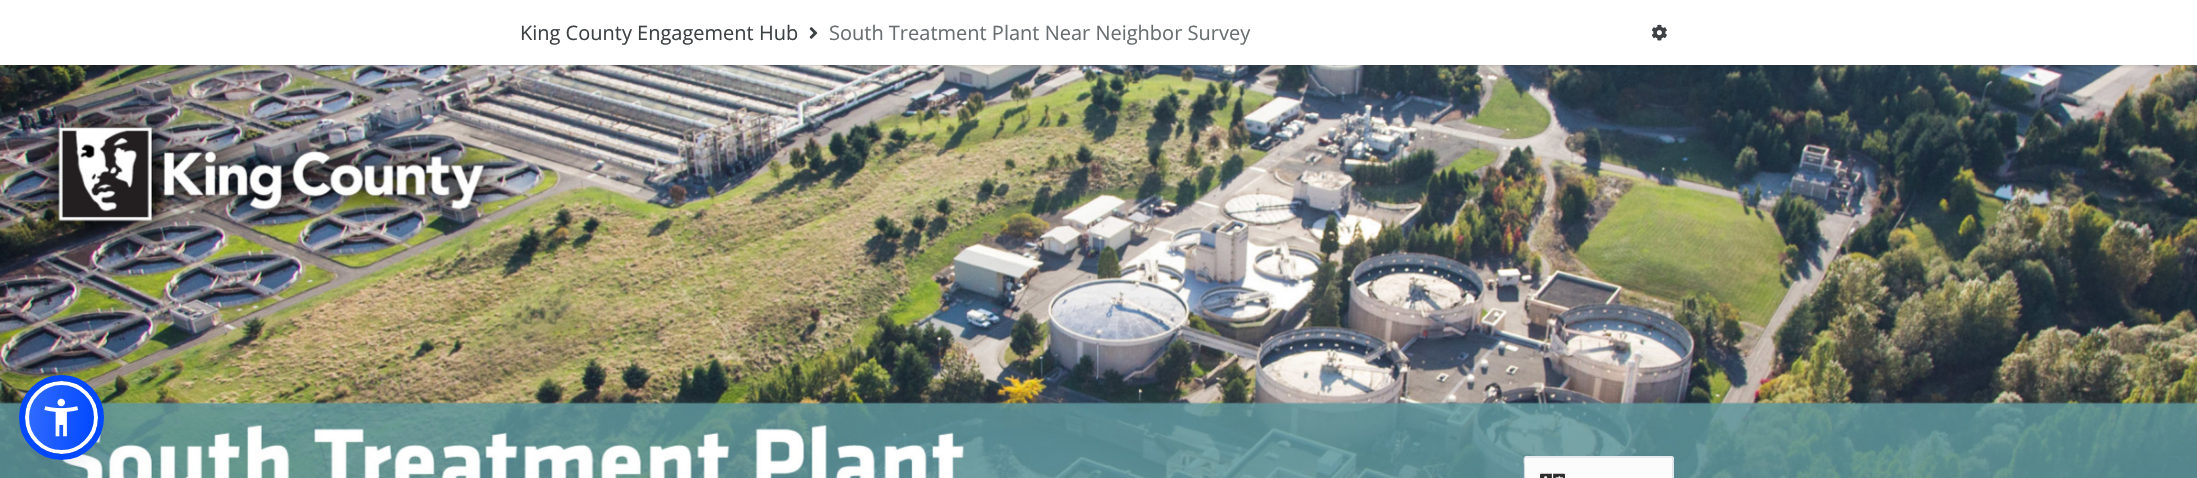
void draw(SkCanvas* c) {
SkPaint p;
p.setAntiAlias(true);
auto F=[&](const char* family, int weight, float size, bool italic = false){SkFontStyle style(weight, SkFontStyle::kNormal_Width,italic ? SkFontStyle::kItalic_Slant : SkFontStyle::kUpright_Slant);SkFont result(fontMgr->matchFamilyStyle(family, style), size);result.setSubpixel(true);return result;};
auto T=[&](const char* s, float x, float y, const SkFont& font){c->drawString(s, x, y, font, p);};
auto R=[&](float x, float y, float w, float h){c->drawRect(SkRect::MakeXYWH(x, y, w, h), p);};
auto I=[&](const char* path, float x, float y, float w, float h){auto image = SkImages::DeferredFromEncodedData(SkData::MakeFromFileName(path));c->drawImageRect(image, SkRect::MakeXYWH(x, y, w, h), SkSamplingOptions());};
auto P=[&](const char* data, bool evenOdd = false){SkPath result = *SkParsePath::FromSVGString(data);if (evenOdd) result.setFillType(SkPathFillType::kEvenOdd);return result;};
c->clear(0xffffffff);
I("3.png",0,65,2197,413);
p.setColor(0x0d000000);
c->drawPath(P("M0 65v1h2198v-65v64z"),p);
c->save();
c->clipRect(SkRect::MakeXYWH(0,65,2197,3));
p.setMaskFilter(SkMaskFilter::MakeBlur(kNormal_SkBlurStyle, 1));
c->drawRect(SkRect::MakeXYWH(0,3,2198,65),p);
p.setMaskFilter(nullptr);
c->restore();
auto f1 = F("Open Sans",400,20);
p.setColor(0xff3c4144);
T("King County Engagement Hub",520,40,f1);
I("1.png",809,27,9,12);
p.setColor(0xff696f71);
T("South Treatment Plant Near Neighbor Survey",829,40,f1);
I("2.png",1651,24,16,17);
p.setColor(0xfffcfcfd);
c->drawPath(P("M1526.5 456h145c1.5 0 2.5 1 2.5 2.5v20.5h-150v-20.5c0-1.5 1-2.5 2.5-2.5z"),p);
p.setStroke(true);
p.setStrokeWidth(1.2);
p.setColor(0xffd2dae1);
c->drawPath(P("M1525 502.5c-1.5-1.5-.5-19.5-.5-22.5v-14c0-3.5-1.5-9 1.5-9h145c3.5 0 2 5.5 2 9v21c0 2.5 1.5 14-.5 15.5"),p);
I("4.png",1540,473,25,5);
p.setStroke(false);
p.setColor(0x335d6494);
p.setMaskFilter(SkMaskFilter::MakeBlur(kNormal_SkBlurStyle, 2.5));
c->drawRoundRect(SkRect::MakeXYWH(25,384,73,72),36,36,p);
p.setMaskFilter(nullptr);
p.setColor(0x26252c61);
p.setMaskFilter(SkMaskFilter::MakeBlur(kNormal_SkBlurStyle, 9.5));
c->drawRoundRect(SkRect::MakeXYWH(25,388,73,72),36,36,p);
p.setMaskFilter(nullptr);
c->save();
c->clipPath(P("M61.5 381c20 0 36.5 16.5 36.5 36.5c0 20-16.5 36.5-36.5 36.5c-20 0-36.5-16.5-36.5-36.5c0-20 16.5-36.5 36.5-36.5z"),true);
{
const SkColor colors[] = {0xff326cff,0xff0048ff};
const float stops[] = {0,1};
const SkPoint ends[] = {{26,414}, {97,421}};
p.setShader(SkGradientShader::MakeLinear(ends, colors, stops, 2, SkTileMode::kClamp));
p.setAlpha(255);
}
R(29,385,65,65);
c->restore();
p.setStroke(true);
p.setStrokeWidth(4);
p.setShader(nullptr);
p.setColor(0xffffffff);
c->drawCircle(61.5,417.5,34.5,p);
p.setStrokeWidth(6);
p.setColor(0xff0048ff);
c->drawCircle(61.5,417.5,39.5,p);
I("5.png",44,398,35,39);
}
